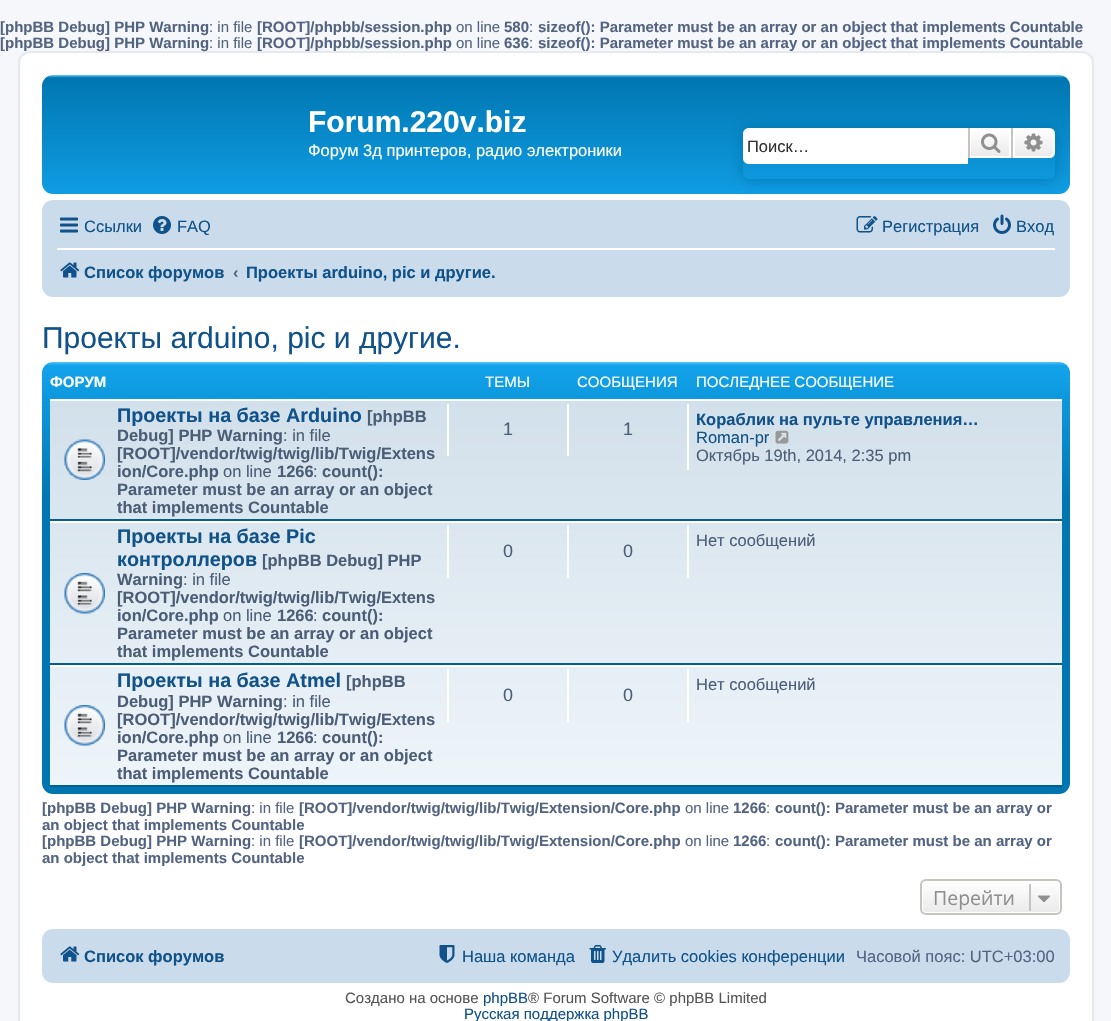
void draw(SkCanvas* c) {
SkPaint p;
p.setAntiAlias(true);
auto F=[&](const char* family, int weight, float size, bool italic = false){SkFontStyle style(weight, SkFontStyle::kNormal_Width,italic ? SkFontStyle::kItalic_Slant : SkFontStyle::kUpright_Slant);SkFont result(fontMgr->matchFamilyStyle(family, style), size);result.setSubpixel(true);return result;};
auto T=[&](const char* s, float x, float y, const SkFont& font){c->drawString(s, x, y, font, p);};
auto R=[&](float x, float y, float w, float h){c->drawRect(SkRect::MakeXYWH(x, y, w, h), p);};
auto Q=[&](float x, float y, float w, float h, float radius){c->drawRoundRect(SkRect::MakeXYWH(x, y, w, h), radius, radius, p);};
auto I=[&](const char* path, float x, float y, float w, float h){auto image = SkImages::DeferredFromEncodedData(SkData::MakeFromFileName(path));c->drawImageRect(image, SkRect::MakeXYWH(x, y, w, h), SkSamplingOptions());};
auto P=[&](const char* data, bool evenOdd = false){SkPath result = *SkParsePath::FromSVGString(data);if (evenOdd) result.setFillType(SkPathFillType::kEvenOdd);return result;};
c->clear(0xfff5f7fa);
auto f1 = F("Liberation Sans",700,15);
p.setColor(0xff536482);
T("[phpBB Debug] PHP Warning",0,32,f1);
auto f2 = F("Liberation Sans",400,15);
T(": in file",209,32,f2);
T("[ROOT]/phpbb/session.php",257,32,f1);
T("on line",456,32,f2);
T("580",504,32,f1);
T(":",529,32,f2);
T("sizeof(): Parameter must be an array or an object that implements Countable",538,32,f1);
p.setColor(0xffffffff);
c->drawRoundRect(SkRect::MakeXYWH(19,52,1074,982),11,11,p);
p.setStroke(true);
p.setStrokeWidth(2);
p.setColor(0xffe6e9ed);
c->drawRoundRect(SkRect::MakeXYWH(19,52,1074,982),11,11,p);
p.setStroke(false);
p.setColor(0xff536482);
T("[phpBB Debug] PHP Warning",0,48,f1);
T(": in file",209,48,f2);
T("[ROOT]/phpbb/session.php",257,48,f1);
T("on line",456,48,f2);
T("636",504,48,f1);
T(":",529,48,f2);
T("sizeof(): Parameter must be an array or an object that implements Countable",538,48,f1);
{
const SkColor colors[] = {0xff6aceff,0xff0076b1,0xff12a3eb};
const float stops[] = {0,.02,1};
const SkPoint ends[] = {{556,75}, {556,213}};
p.setShader(SkGradientShader::MakeLinear(ends, colors, stops, 3, SkTileMode::kClamp));
p.setAlpha(255);
}
Q(42,75,1028,119,11);
auto f3 = F("Liberation Sans",700,30);
p.setShader(nullptr);
p.setColor(0xffffffff);
T("Forum.220v.biz",308,132,f3);
auto f4 = F("Liberation Sans",400,16.5);
T("Форум 3д принтеров, радио электроники",308,156,f4);
p.setColor(0xffcadceb);
Q(42,200,1028,97,11);
c->save();
c->clipPath(P("M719 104h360v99h-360zm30 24h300c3.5 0 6 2.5 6 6v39c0 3.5-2.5 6-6 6h-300c-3.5 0-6-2.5-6-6v-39c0-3.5 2.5-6 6-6z",true),true);
p.setColor(0xff0075b0);
p.setMaskFilter(SkMaskFilter::MakeBlur(kNormal_SkBlurStyle, 7.5));
c->drawRoundRect(SkRect::MakeXYWH(743,128,312,51),6,6,p);
p.setMaskFilter(nullptr);
c->restore();
p.setColor(0xffffffff);
c->drawPath(P("M749 128h219v36h-219c-3.5 0-6-2.5-6-6v-24c0-3.5 2.5-6 6-6z"),p);
p.setColor(0xff333333);
T("Поиск…",747,152,f4);
{
const SkColor colors[] = {0xffffffff,0xffe9e9e9};
const float stops[] = {0,1};
const SkPoint ends[] = {{990,128}, {990,158}};
p.setShader(SkGradientShader::MakeLinear(ends, colors, stops, 2, SkTileMode::kClamp));
p.setAlpha(255);
}
R(971,130,38,26);
p.setStroke(true);
p.setShader(nullptr);
p.setColor(0xffffffff);
c->drawRect(SkRect::MakeXYWH(970,129,40,28),p);
p.setStroke(false);
p.setColor(0xffc7c3bf);
R(1011,128,2,30);
R(968,128,2,30);
I("1.png",981,133,20,20);
{
const SkColor colors[] = {0xffffffff,0xffe9e9e9};
const float stops[] = {0,1};
const SkPoint ends[] = {{1034,128}, {1034,158}};
p.setShader(SkGradientShader::MakeLinear(ends, colors, stops, 2, SkTileMode::kClamp));
p.setAlpha(255);
}
c->drawPath(P("M1014 129h35c3 0 5 2 5 5v18c0 3-2 5-5 5h-35z"),p);
p.setStroke(true);
p.setShader(nullptr);
p.setColor(0xffffffff);
c->drawPath(P("M1014 129h35c3 0 5 2 5 5v18c0 3-2 5-5 5h-35z"),p);
I("2.png",1024,133,19,19);
I("3.png",60,217,18,16);
p.setStroke(false);
p.setColor(0xff105289);
T("Ссылки",84,232,f4);
I("4.png",153,216,18,18);
T("FAQ",177,232,f4);
I("5.png",856,216,22,17);
T("Регистрация",882,232,f4);
I("6.png",993,214,18,20);
T("Вход",1016,232,f4);
p.setColor(0xffffffff);
R(57,248,998,2);
I("7.png",60,262,20,16);
auto f5 = F("Liberation Sans",700,16.5);
p.setColor(0xff105289);
T("Список форумов",84,278,f5);
p.setColor(0xff536482);
T("‹",233,278,f5);
p.setColor(0xff105289);
T("Проекты arduino, pic и другие.",246,278,f5);
auto f6 = F("Liberation Sans",400,30);
T("Проекты arduino, pic и другие.",42,348,f6);
{
const SkColor colors[] = {0xff6aceff,0xff12a3eb,0xff0076b1,0xff0076b1};
const float stops[] = {0,.01,.32,1};
const SkPoint ends[] = {{556,361}, {556,794}};
p.setShader(SkGradientShader::MakeLinear(ends, colors, stops, 4, SkTileMode::kClamp));
p.setAlpha(255);
}
Q(42,362,1028,432,11);
p.setShader(nullptr);
p.setColor(0xffffffff);
T("ФОРУМ",50,387,f1);
T("ТЕМЫ",485,387,f2);
T("СООБЩЕНИЯ",577,387,f2);
T("ПОСЛЕДНЕЕ СООБЩЕНИЕ",696,387,f2);
{
const SkColor colors[] = {0xffd2e0eb,0xffeef5f9};
const float stops[] = {0,1};
const SkPoint ends[] = {{556,399}, {556,786}};
p.setShader(SkGradientShader::MakeLinear(ends, colors, stops, 2, SkTileMode::kClamp));
p.setAlpha(255);
}
R(50,401,1012,384);
p.setShader(nullptr);
p.setColor(0xffffffff);
R(50,399,1012,2);
p.setColor(0xff00608f);
R(50,519,1012,2);
I("8.png",64,439,41,41);
auto f7 = F("Liberation Sans",700,19.75);
p.setColor(0xff105289);
T("Проекты на базе Arduino",117,422,f7);
p.setColor(0xff4c5d77);
T("[phpBB",367,422,f5);
T("Debug] PHP Warning",117,441,f5);
T(": in file",283,441,f4);
T("[ROOT]/vendor/twig/twig/lib/Twig/Extens",117,459,f5);
T("ion/Core.php",117,477,f5);
T("on line",223,477,f4);
T("1266",277,477,f5);
T(":",313,477,f4);
T("count():",322,477,f5);
T("Parameter must be an array or an object",117,495,f5);
T("that implements Countable",117,513,f5);
p.setColor(0xffffffff);
R(447,404,2,52);
auto f8 = F("Liberation Sans",400,18);
p.setColor(0xff4c5d77);
T("1",503,435,f8);
p.setColor(0xffffffff);
R(567,404,2,52);
p.setColor(0xff4c5d77);
T("1",623,435,f8);
p.setColor(0xffffffff);
R(687,404,2,66);
p.setColor(0xff105289);
T("Кораблик на пульте управления…",696,425,f5);
T("Roman-pr",696,443,f4);
I("9.png",775,430,14,14);
p.setColor(0xff4c5d77);
T("Октябрь 19th, 2014, 2:35 pm",696,461,f4);
p.setColor(0xffffffff);
R(50,521,1012,2);
p.setColor(0xff00608f);
R(50,663,1012,2);
I("10.png",64,573,41,41);
p.setColor(0xff105289);
T("Проекты на базе Pic",117,543,f7);
T("контроллеров",117,566,f7);
p.setColor(0xff4c5d77);
T("[phpBB Debug] PHP",262,566,f5);
T("Warning",117,585,f5);
T(": in file",183,585,f4);
T("[ROOT]/vendor/twig/twig/lib/Twig/Extens",117,603,f5);
T("ion/Core.php",117,621,f5);
T("on line",223,621,f4);
T("1266",277,621,f5);
T(":",313,621,f4);
T("count():",322,621,f5);
T("Parameter must be an array or an object",117,639,f5);
T("that implements Countable",117,657,f5);
p.setColor(0xffffffff);
R(447,525,2,53);
p.setColor(0xff4c5d77);
T("0",503,557,f8);
p.setColor(0xffffffff);
R(567,525,2,53);
p.setColor(0xff4c5d77);
T("0",623,557,f8);
p.setColor(0xffffffff);
R(687,525,2,53);
p.setColor(0xff4c5d77);
T("Нет сообщений",696,546,f4);
p.setColor(0xffffffff);
R(50,665,1012,2);
p.setColor(0xff00608f);
R(50,785,1012,2);
I("11.png",64,705,41,41);
p.setColor(0xff105289);
T("Проекты на базе Atmel",117,687,f7);
p.setColor(0xff4c5d77);
T("[phpBB",346,687,f5);
T("Debug] PHP Warning",117,707,f5);
T(": in file",283,707,f4);
T("[ROOT]/vendor/twig/twig/lib/Twig/Extens",117,725,f5);
T("ion/Core.php",117,743,f5);
T("on line",223,743,f4);
T("1266",277,743,f5);
T(":",313,743,f4);
T("count():",322,743,f5);
T("Parameter must be an array or an object",117,761,f5);
T("that implements Countable",117,779,f5);
p.setColor(0xffffffff);
R(447,669,2,53);
p.setColor(0xff4c5d77);
T("0",503,701,f8);
p.setColor(0xffffffff);
R(567,669,2,53);
p.setColor(0xff4c5d77);
T("0",623,701,f8);
p.setColor(0xffffffff);
R(687,669,2,53);
p.setColor(0xff4c5d77);
T("Нет сообщений",696,690,f4);
p.setColor(0xff536482);
T("[phpBB Debug] PHP Warning",42,813,f1);
T(": in file",251,813,f2);
T("[ROOT]/vendor/twig/twig/lib/Twig/Extension/Core.php",299,813,f1);
T("on line",685,813,f2);
T("1266",733,813,f1);
T(":",766,813,f2);
T("count(): Parameter must be an array or",775,813,f1);
T("an object that implements Countable",42,830,f1);
T("[phpBB Debug] PHP Warning",42,846,f1);
T(": in file",251,846,f2);
T("[ROOT]/vendor/twig/twig/lib/Twig/Extension/Core.php",299,846,f1);
T("on line",685,846,f2);
T("1266",733,846,f1);
T(":",766,846,f2);
T("count(): Parameter must be an array or",775,846,f1);
T("an object that implements Countable",42,863,f1);
c->save();
c->clipPath(P("M926 879h130c3.5 0 6 2.5 6 6v24c0 3.5-2.5 6-6 6h-130c-3.5 0-6-2.5-6-6v-24c0-3.5 2.5-6 6-6z"),true);
{
const SkColor colors[] = {0xffffffff,0xffe9e9e9};
const float stops[] = {0,1};
const SkPoint ends[] = {{991,881}, {991,914}};
p.setShader(SkGradientShader::MakeLinear(ends, colors, stops, 2, SkTileMode::kClamp));
p.setAlpha(255);
}
R(920,881,142,33);
c->restore();
p.setStroke(true);
p.setShader(nullptr);
p.setColor(0xffffffff);
c->drawRoundRect(SkRect::MakeXYWH(922,882,138,31),4,4,p);
p.setColor(0xffc7c3bf);
c->drawRoundRect(SkRect::MakeXYWH(921,880,140,34),5,5,p);
auto f9 = F("Open Sans",400,19.5);
p.setStroke(false);
p.setColor(0xff8f8f8f);
T("Перейти",933,905,f9);
p.setColor(0xffc7c3bf);
R(1029,884,2,27);
I("12.png",1038,895,12,8);
p.setColor(0xffcadceb);
Q(42,929,1028,54,11);
I("7.png",60,946,20,16);
p.setColor(0xff105289);
T("Список форумов",84,962,f5);
I("13.png",439,945,16,18);
T("Наша команда",462,962,f4);
I("14.png",589,945,17,18);
T("Удалить cookies конференции",612,962,f4);
p.setColor(0xff536482);
T("Часовой пояс: UTC+03:00",856,962,f4);
p.setColor(0xff555555);
T("Создано на основе",345,1003,f2);
p.setColor(0xff105289);
T("phpBB",483,1003,f2);
p.setColor(0xff555555);
T("® Forum Software © phpBB Limited",528,1003,f2);
p.setColor(0xff105289);
T("Русская поддержка phpBB",464,1019,f2);
}
